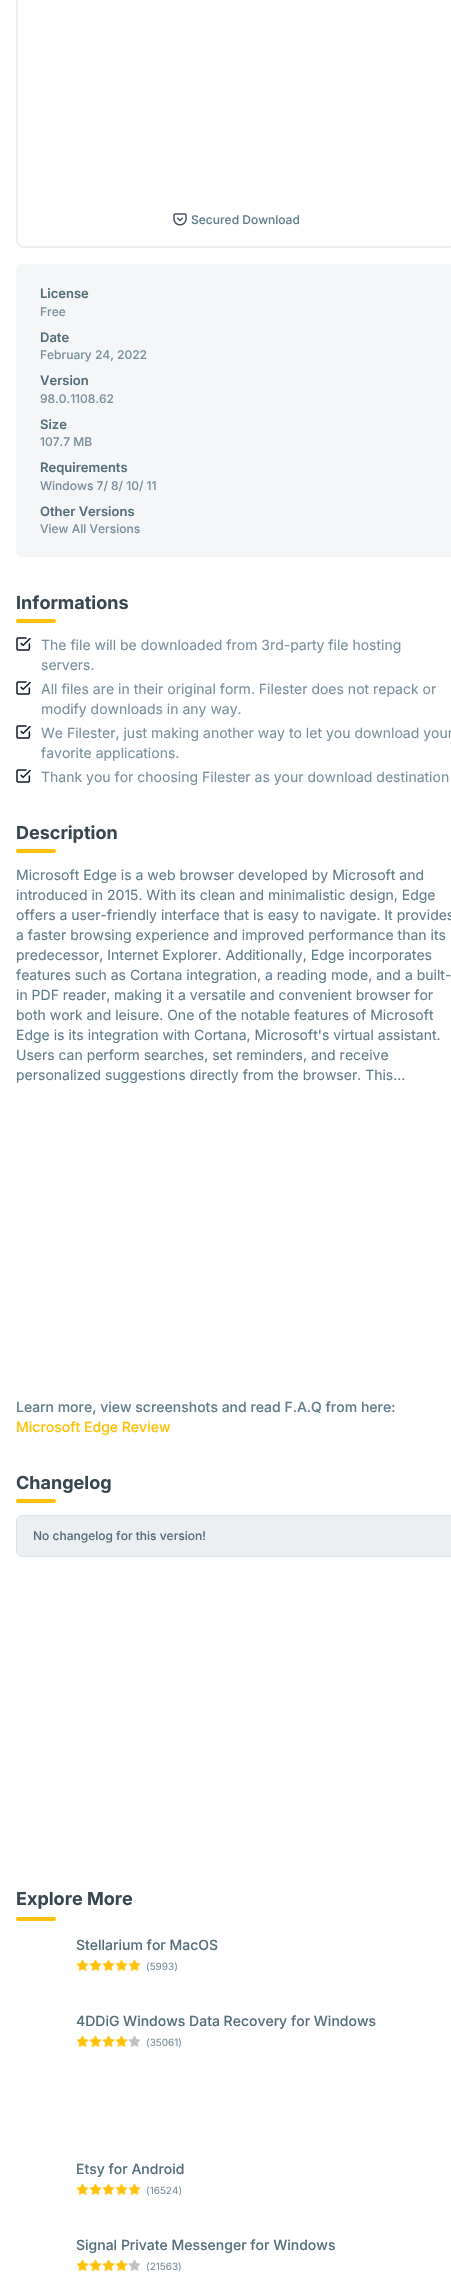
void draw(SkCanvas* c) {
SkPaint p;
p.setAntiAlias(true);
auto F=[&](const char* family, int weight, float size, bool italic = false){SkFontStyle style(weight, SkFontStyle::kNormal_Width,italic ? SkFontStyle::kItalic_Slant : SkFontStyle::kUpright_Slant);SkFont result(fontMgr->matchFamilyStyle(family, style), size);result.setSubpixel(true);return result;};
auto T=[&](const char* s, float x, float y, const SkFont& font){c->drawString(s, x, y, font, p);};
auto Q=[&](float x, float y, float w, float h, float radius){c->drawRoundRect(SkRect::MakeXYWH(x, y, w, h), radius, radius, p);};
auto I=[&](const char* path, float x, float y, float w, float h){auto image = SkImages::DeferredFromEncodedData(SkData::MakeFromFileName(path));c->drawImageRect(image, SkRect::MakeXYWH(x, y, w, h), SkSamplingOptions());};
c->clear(0xffffffff);
p.setStroke(true);
p.setStrokeWidth(2);
p.setColor(0xffeceff1);
c->drawRoundRect(SkRect::MakeXYWH(17,-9,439,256),7,7,p);
I("1.png",173,213,14,13);
auto f1 = F("Inter",500,12);
p.setStroke(false);
p.setColor(0xff607d8b);
T("Secured Download",191,224,f1);
p.setColor(0xfff4f6f7);
Q(16,264,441,293,6);
auto f2 = F("Inter",600,13);
p.setColor(0xff546e7a);
T("License",40,298,f2);
p.setColor(0xff78909c);
T("Free",40,316,f1);
p.setColor(0xff546e7a);
T("Date",40,342,f2);
p.setColor(0xff78909c);
T("February 24, 2022",40,359,f1);
p.setColor(0xff546e7a);
T("Version",40,385,f2);
p.setColor(0xff78909c);
T("98.0.1108.62",40,403,f1);
p.setColor(0xff546e7a);
T("Size",40,429,f2);
p.setColor(0xff78909c);
T("107.7 MB",40,446,f1);
p.setColor(0xff546e7a);
T("Requirements",40,472,f2);
p.setColor(0xff78909c);
T("Windows 7/ 8/ 10/ 11",40,490,f1);
p.setColor(0xff546e7a);
T("Other Versions",40,516,f2);
p.setColor(0xff78909c);
T("View All Versions",40,533,f1);
auto f3 = F("Inter",700,18);
p.setColor(0xff37474f);
T("Informations",16,609,f3);
p.setColor(0xffffc107);
Q(16,619,40,4,2);
I("2.png",16,637,15,14);
auto f4 = F("Inter",400,14);
p.setColor(0xff78909c);
T("The file will be downloaded from 3rd-party file hosting",41,650,f4);
T("servers.",41,670,f4);
I("2.png",16,681,15,14);
T("All files are in their original form. Filester does not repack or",41,694,f4);
T("modify downloads in any way.",41,714,f4);
I("2.png",16,725,15,14);
T("We Filester, just making another way to let you download your",41,738,f4);
T("favorite applications.",41,758,f4);
I("2.png",16,769,15,14);
T("Thank you for choosing Filester as your download destination",41,782,f4);
p.setColor(0xff37474f);
T("Description",16,839,f3);
p.setColor(0xffffc107);
Q(16,849,40,4,2);
p.setColor(0xff607d8b);
T("Microsoft Edge is a web browser developed by Microsoft and",16,880,f4);
T("introduced in 2015. With its clean and minimalistic design, Edge",16,900,f4);
T("offers a user-friendly interface that is easy to navigate. It provides",16,920,f4);
T("a faster browsing experience and improved performance than its",16,940,f4);
T("predecessor, Internet Explorer. Additionally, Edge incorporates",16,960,f4);
T("features such as Cortana integration, a reading mode, and a built-",16,980,f4);
T("in PDF reader, making it a versatile and convenient browser for",16,1000,f4);
T("both work and leisure. One of the notable features of Microsoft",16,1020,f4);
T("Edge is its integration with Cortana, Microsoft's virtual assistant.",16,1040,f4);
T("Users can perform searches, set reminders, and receive",16,1060,f4);
T("personalized suggestions directly from the browser. This...",16,1080,f4);
auto f5 = F("Inter",500,14);
T("Learn more, view screenshots and read F.A.Q from here:",16,1412,f5);
p.setColor(0xffffc107);
T("Microsoft Edge Review",16,1432,f5);
p.setColor(0xff37474f);
T("Changelog",16,1489,f3);
p.setColor(0xffffc107);
Q(16,1499,40,4,2);
p.setColor(0xffeceff1);
Q(16,1515,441,42,6);
p.setStroke(true);
p.setStrokeWidth(1);
p.setColor(0x99cfd8dc);
c->drawRoundRect(SkRect::MakeXYWH(16.5,1515.5,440,41),5.5,5.5,p);
p.setStroke(false);
p.setColor(0xff546e7a);
T("No changelog for this version!",33,1540,f1);
p.setColor(0xff37474f);
T("Explore More",16,1905,f3);
p.setColor(0xffffc107);
Q(16,1917,40,4,2);
p.setColor(0xff546e7a);
T("Stellarium for MacOS",76,1950,f5);
I("3.png",76,1959,13,13);
I("3.png",89,1959,13,13);
I("3.png",102,1959,13,13);
I("3.png",115,1959,13,13);
I("4.png",128,1959,13,13);
auto f6 = F("Inter",400,10);
p.setColor(0xff78909c);
T("(5993)",146,1970,f6);
p.setColor(0xff546e7a);
T("4DDiG Windows Data Recovery for Windows",76,2026,f5);
I("3.png",76,2035,13,13);
I("3.png",89,2035,13,13);
I("3.png",102,2035,13,13);
I("3.png",115,2035,13,13);
I("5.png",128,2035,13,13);
p.setColor(0xff78909c);
T("(35061)",146,2046,f6);
p.setColor(0xff546e7a);
T("Etsy for Android",76,2174,f5);
I("3.png",76,2183,13,13);
I("3.png",89,2183,13,13);
I("3.png",102,2183,13,13);
I("3.png",115,2183,13,13);
I("4.png",128,2183,13,13);
p.setColor(0xff78909c);
T("(16524)",146,2194,f6);
p.setColor(0xff546e7a);
T("Signal Private Messenger for Windows",76,2250,f5);
I("3.png",76,2259,13,13);
I("3.png",89,2259,13,13);
I("3.png",102,2259,13,13);
I("3.png",115,2259,13,13);
I("5.png",128,2259,13,13);
p.setColor(0xff78909c);
T("(21563)",146,2270,f6);
}
